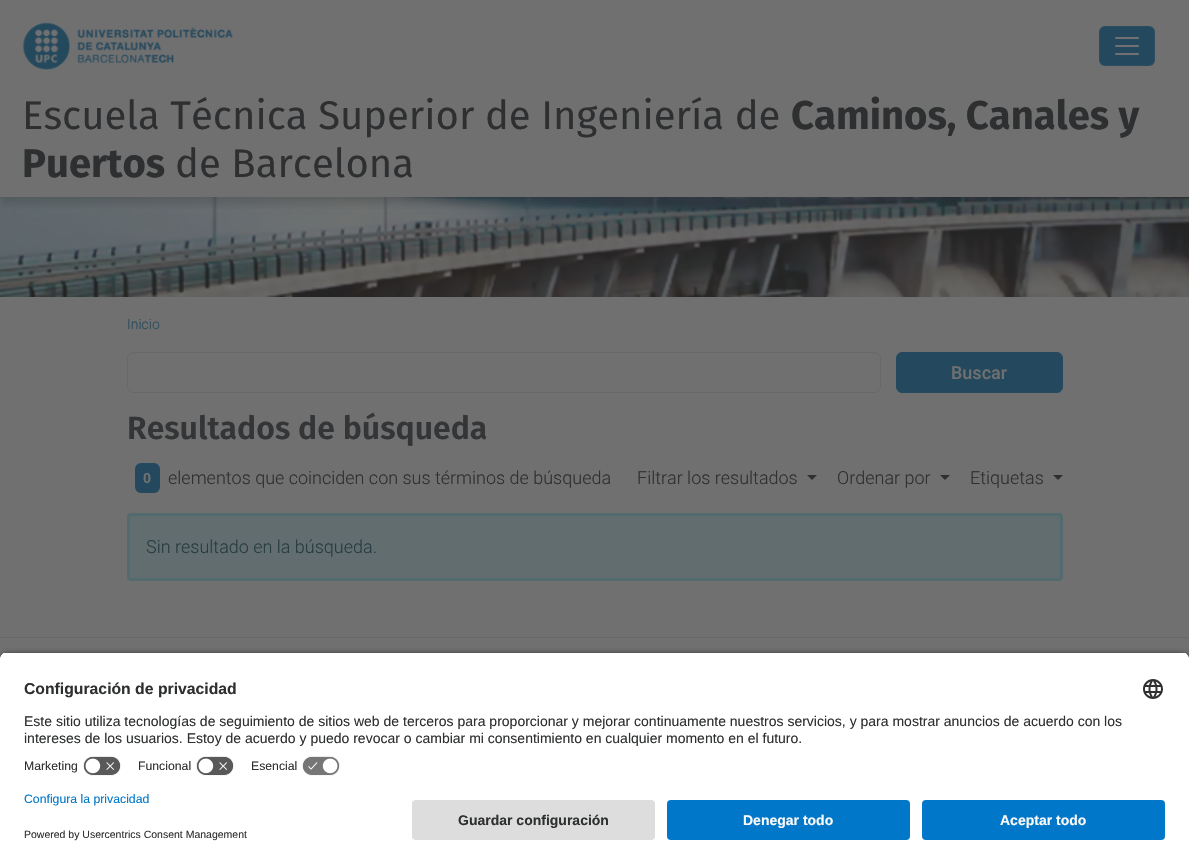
void draw(SkCanvas* c) {
SkPaint p;
p.setAntiAlias(true);
auto F=[&](const char* family, int weight, float size, bool italic = false){SkFontStyle style(weight, SkFontStyle::kNormal_Width,italic ? SkFontStyle::kItalic_Slant : SkFontStyle::kUpright_Slant);SkFont result(fontMgr->matchFamilyStyle(family, style), size);result.setSubpixel(true);return result;};
auto T=[&](const char* s, float x, float y, const SkFont& font){c->drawString(s, x, y, font, p);};
auto R=[&](float x, float y, float w, float h){c->drawRect(SkRect::MakeXYWH(x, y, w, h), p);};
auto Q=[&](float x, float y, float w, float h, float radius){c->drawRoundRect(SkRect::MakeXYWH(x, y, w, h), radius, radius, p);};
auto I=[&](const char* path, float x, float y, float w, float h){auto image = SkImages::DeferredFromEncodedData(SkData::MakeFromFileName(path));c->drawImageRect(image, SkRect::MakeXYWH(x, y, w, h), SkSamplingOptions());};
auto P=[&](const char* data, bool evenOdd = false){SkPath result = *SkParsePath::FromSVGString(data);if (evenOdd) result.setFillType(SkPathFillType::kEvenOdd);return result;};
c->clear(0xff707070);
I("1.png",22,22,211,48);
p.setColor(0xff24495e);
Q(1099,26,56,40,6);
p.setStroke(true);
p.setStrokeWidth(1);
p.setColor(0x1a707070);
c->drawRoundRect(SkRect::MakeXYWH(1099.5,26.5,55,39),5.5,5.5,p);
I("2.png",1115,37,24,18);
I("3.png",0,197,1189,100);
c->save();
c->clipRect(SkRect::MakeXYWH(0,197,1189,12));
p.setStroke(false);
p.setColor(0x33242424);
p.setMaskFilter(SkMaskFilter::MakeBlur(kNormal_SkBlurStyle, 4));
c->drawRect(SkRect::MakeXYWH(0,99,1189,105),p);
p.setMaskFilter(nullptr);
c->restore();
auto f1 = F("Fira Sans",400,40);
p.setColor(0xff2e2f30);
T("Escuela Técnica Superior de Ingeniería de",22,129,f1);
auto f2 = F("Fira Sans",700,40);
T("Caminos, Canales y",791,129,f2);
T("Puertos",22,177,f2);
T("de Barcelona",175,177,f1);
auto f3 = F("Roboto",300,14);
p.setColor(0xff244959);
T("Inicio",127,329,f3);
p.setStroke(true);
p.setColor(0xff666869);
c->drawRoundRect(SkRect::MakeXYWH(127.5,352.5,753,40),6.5,6.5,p);
p.setStroke(false);
p.setColor(0xff24495e);
c->drawRoundRect(SkRect::MakeXYWH(896.5,352.5,166,40),5.5,5.5,p);
p.setStroke(true);
c->drawRoundRect(SkRect::MakeXYWH(896.5,352.5,166,40),5.5,5.5,p);
auto f4 = F("Roboto",500,18);
p.setStroke(false);
p.setColor(0xff707070);
T("Buscar",951,379,f4);
auto f5 = F("Fira Sans",600,32);
p.setColor(0xff333537);
T("Resultados de búsqueda",127,439,f5);
p.setColor(0xff24495e);
Q(135,463,25,30,6);
auto f6 = F("Roboto",700,14);
p.setColor(0xff707070);
T("0",143,483,f6);
auto f7 = F("Roboto",300,18);
p.setColor(0xff2e2f30);
T("elementos que coinciden con sus términos de búsqueda",168,484,f7);
T("Filtrar los resultados",637,484,f7);
c->drawPath(P("M807 475h10l-5 5z"),p);
T("Ordenar por",837,484,f7);
c->drawPath(P("M940 475h10l-5 5z"),p);
T("Etiquetas",970,484,f7);
c->drawPath(P("M1053 475h10l-5 5z"),p);
p.setColor(0xff626d6f);
c->drawRoundRect(SkRect::MakeXYWH(128.5,514.5,933,65),2.5,2.5,p);
p.setStroke(true);
p.setStrokeWidth(3);
p.setColor(0xff536a6e);
c->drawRoundRect(SkRect::MakeXYWH(128.5,514.5,933,65),2.5,2.5,p);
p.setStroke(false);
p.setColor(0xff253c41);
T("Sin resultado en la búsqueda.",146,553,f7);
p.setColor(0xff666869);
R(0,637,1189,1);
p.setColor(0xcc000000);
p.setMaskFilter(SkMaskFilter::MakeBlur(kNormal_SkBlurStyle, 3.5));
c->drawRoundRect(SkRect::MakeXYWH(0,655,1189,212),8,8,p);
p.setMaskFilter(nullptr);
c->save();
c->clipPath(P("M8 652h1173c4.5 0 8 3.5 8 8v132h-1189v-132c0-4.5 3.5-8 8-8z"),true);
p.setColor(0xffffffff);
R(0,653,1189,139);
R(0,653,1189,99);
c->restore();
auto f8 = F("Liberation Sans",700,15.75);
p.setColor(0xff2e2f30);
T("Configuración de privacidad",24,694,f8);
I("4.png",1143,679,20,20);
auto f9 = F("Liberation Sans",400,14);
T("Este sitio utiliza tecnologías de seguimiento de sitios web de terceros para proporcionar y mejorar continuamente nuestros servicios, y para mostrar anuncios de acuerdo con los",24,726,f9);
T("intereses de los usuarios. Estoy de acuerdo y puedo revocar o cambiar mi consentimiento en cualquier momento en el futuro.",24,743,f9);
auto f10 = F("Liberation Sans",400,12.25);
T("Marketing",24,770,f10);
I("5.png",83,756,38,20);
T("Funcional",138,770,f10);
I("5.png",196,756,38,20);
T("Esencial",251,770,f10);
I("6.png",302,756,38,20);
p.setColor(0xffffffff);
R(0,792,1189,72);
p.setColor(0xff0077c8);
T("Configura la privacidad",24,803,f10);
auto f11 = F("Liberation Sans",400,10.5);
p.setColor(0xff2e2f30);
T("Powered by Usercentrics Consent Management",24,838,f11);
p.setColor(0xffdddddd);
Q(412,800,243,40,4);
auto f12 = F("Liberation Sans",700,14);
p.setColor(0xff2e2f30);
T("Guardar configuración",458,825,f12);
p.setColor(0xff0077c8);
Q(667,800,243,40,4);
p.setColor(0xfffafafa);
T("Denegar todo",743,825,f12);
p.setColor(0xff0077c8);
Q(922,800,243,40,4);
p.setColor(0xfffafafa);
T("Aceptar todo",1000,825,f12);
}
